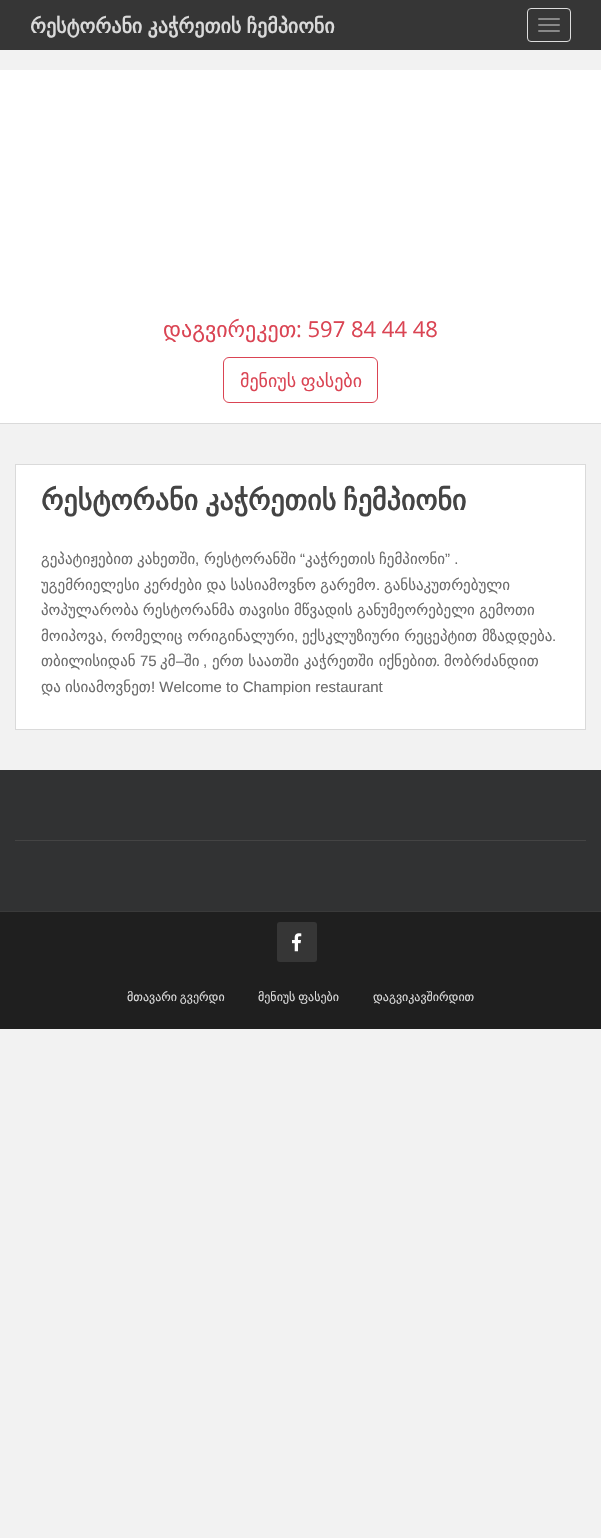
void draw(SkCanvas* c) {
SkPaint p;
p.setAntiAlias(true);
auto F=[&](const char* family, int weight, float size, bool italic = false){SkFontStyle style(weight, SkFontStyle::kNormal_Width,italic ? SkFontStyle::kItalic_Slant : SkFontStyle::kUpright_Slant);SkFont result(fontMgr->matchFamilyStyle(family, style), size);result.setSubpixel(true);return result;};
auto T=[&](const char* s, float x, float y, const SkFont& font){c->drawString(s, x, y, font, p);};
auto L=[&](const char* s, float x, float y, const SkFont& font, const SkPaint& ink, float letter, float word){std::vector<SkGlyphID> glyphs(font.countText(s, strlen(s), SkTextEncoding::kUTF8));std::vector<float> xs(glyphs.size());font.textToGlyphs(s, strlen(s), SkTextEncoding::kUTF8, glyphs);font.getXPos(glyphs, xs, x);float extra = 0;for (size_t i = 0; i < glyphs.size(); i++) {xs[i] += extra;extra += letter + word * (glyphs[i] == font.unicharToGlyph(' '));}c->drawTextBlob(SkTextBlob::MakeFromPosHGlyphs(glyphs, xs, y, font), 0, 0, ink);};
auto R=[&](float x, float y, float w, float h){c->drawRect(SkRect::MakeXYWH(x, y, w, h), p);};
auto Q=[&](float x, float y, float w, float h, float radius){c->drawRoundRect(SkRect::MakeXYWH(x, y, w, h), radius, radius, p);};
auto I=[&](const char* path, float x, float y, float w, float h){auto image = SkImages::DeferredFromEncodedData(SkData::MakeFromFileName(path));c->drawImageRect(image, SkRect::MakeXYWH(x, y, w, h), SkSamplingOptions());};
c->clear(0xfff2f2f2);
p.setColor(0xff363636);
R(0,0,601,50);
auto f1 = F("DejaVu Sans",700,20);
p.setColor(0xffdadada);
L("რესტორანი კაჭრეთის ჩემპიონი",30,33,f1,p,0,-1);
p.setStroke(true);
p.setStrokeWidth(1);
p.setColor(0xffdddddd);
c->drawRoundRect(SkRect::MakeXYWH(527.5,8.5,43,33),3.5,3.5,p);
p.setStroke(false);
p.setColor(0xff888888);
Q(538,18,22,2,1);
Q(538,24,22,2,1);
Q(538,30,22,2,1);
p.setColor(0xffffffff);
R(0,70,601,353);
p.setColor(0xffdadada);
R(0,423,601,1);
auto f2 = F("DejaVu Sans",400,22);
p.setColor(0xffda4453);
T("დაგვირეკეთ",163,337,f2);
auto f3 = F("Open Sans",400,22);
T(": 597 84 44 48",296,337,f3);
p.setStroke(true);
c->drawRoundRect(SkRect::MakeXYWH(223.5,357.5,154,45),5.5,5.5,p);
auto f4 = F("DejaVu Sans",400,18);
p.setStroke(false);
L("მენიუს ფასები",240,387,f4,p,0,-1);
p.setColor(0xffffffff);
c->drawRect(SkRect::MakeXYWH(15.5,464.5,570,265),p);
p.setStroke(true);
p.setColor(0xffdadada);
c->drawRect(SkRect::MakeXYWH(15.5,464.5,570,265),p);
auto f5 = F("DejaVu Sans",700,28);
p.setStroke(false);
p.setColor(0xff444444);
L("რესტორანი კაჭრეთის ჩემპიონი",41,510,f5,p,0,-2);
auto f6 = F("DejaVu Sans",400,15);
p.setColor(0xff6b6b6b);
T("გეპატიჟებით",41,564,f6);
T("კახეთში",137,564,f6);
auto f7 = F("Liberation Sans",400,15);
T(",",195,564,f7);
T("რესტორანში",204,564,f6);
T("“",300,564,f7);
T("კაჭრეთის",305,564,f6);
T("ჩემპიონი",379,564,f6);
T("” .",445,564,f7);
L("უგემრიელესი კერძები და სასიამოვნო გარემო",41,590,f6,p,0,-.5);
T(".",376,590,f7);
T("განსაკუთრებული",384,590,f6);
L("პოპულარობა რესტორანმა თავისი მწვადის განუმეორებელი გემოთი",41,615,f6,p,0,-.5);
T("მოიპოვა",41,641,f6);
T(",",103,641,f7);
T("რომელიც ორიგინალური",111,641,f6);
T(",",294,641,f7);
T("ექსკლუზიური რეცეპტით მზადდება",302,641,f6);
T(".",552,641,f7);
T("თბილისიდან",41,666,f6);
T("75",140,666,f7);
T("კმ",160,666,f6);
T("–",176,666,f7);
T("ში",184,666,f6);
T("ერთ საათში კაჭრეთში იქნებით",212,666,f6);
T("მობრძანდით",444,666,f6);
T(",",203,666,f7);
T(".",436,666,f7);
T("და",41,692,f6);
T("ისიამოვნეთ",65,692,f6);
T("! Welcome to Champion restaurant",151,692,f7);
p.setColor(0xff313233);
R(0,770,601,141);
p.setColor(0xff444444);
R(15,840,571,1);
p.setColor(0xff1f1f1f);
R(0,912,601,117);
p.setColor(0xff3a3a3a);
R(0,911,601,1);
p.setColor(0xff363636);
Q(277,922,40,40,3);
I("1.png",292,933,10,19);
auto f8 = F("DejaVu Sans",400,12);
p.setColor(0xffdadada);
L("მთავარი გვერდი",127,1001,f8,p,0,-1);
L("მენიუს ფასები",258,1001,f8,p,0,-1);
T("დაგვიკავშირდით",373,1001,f8);
}
